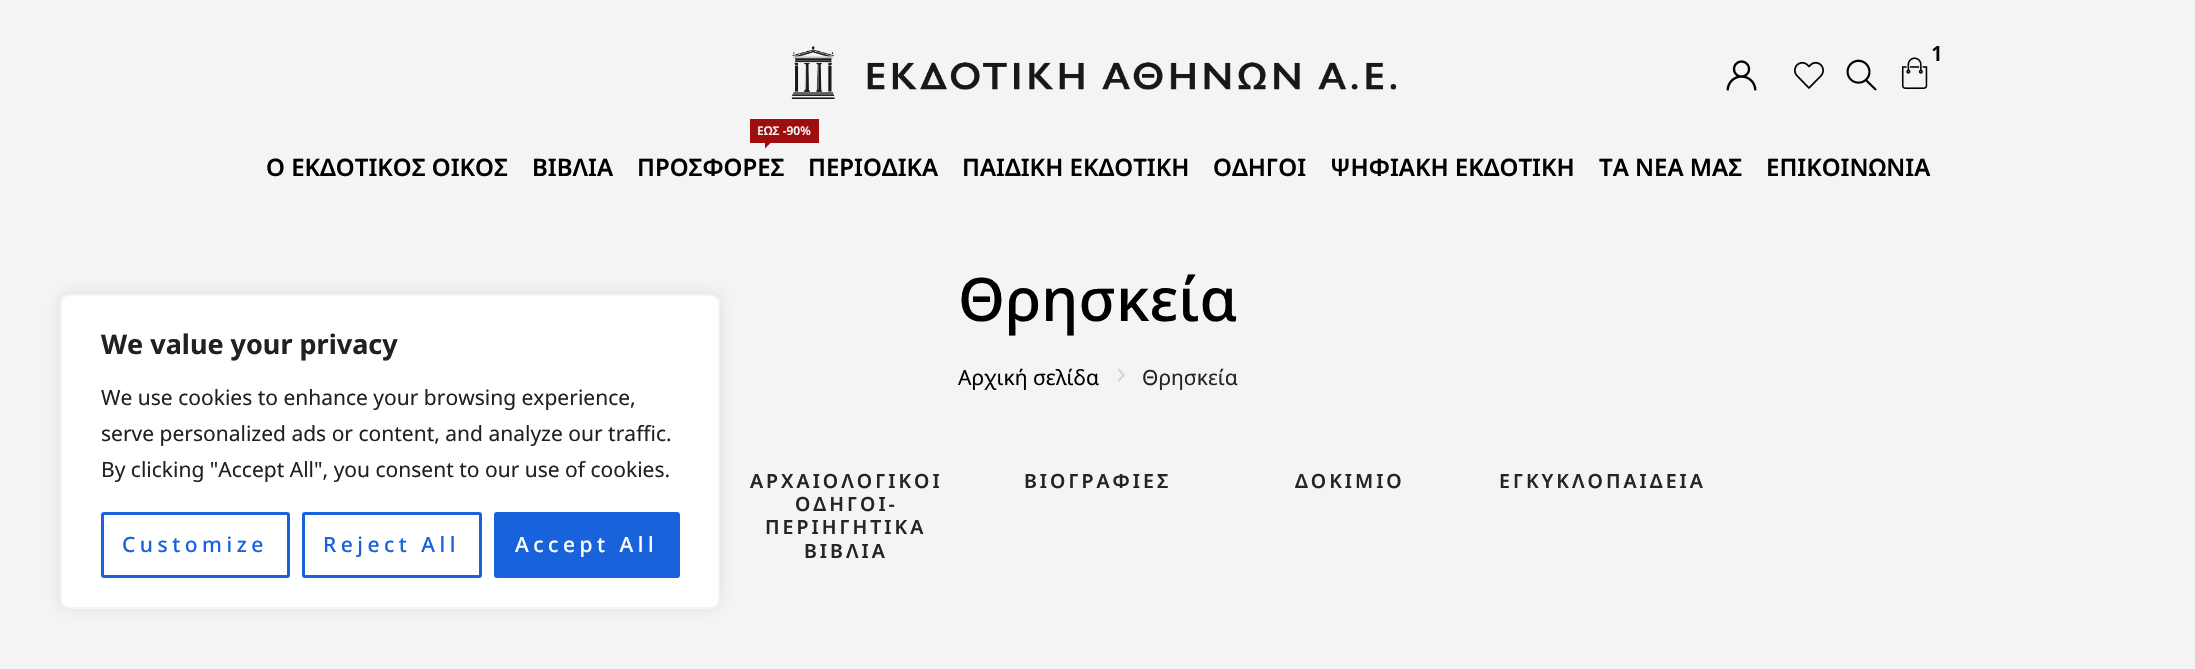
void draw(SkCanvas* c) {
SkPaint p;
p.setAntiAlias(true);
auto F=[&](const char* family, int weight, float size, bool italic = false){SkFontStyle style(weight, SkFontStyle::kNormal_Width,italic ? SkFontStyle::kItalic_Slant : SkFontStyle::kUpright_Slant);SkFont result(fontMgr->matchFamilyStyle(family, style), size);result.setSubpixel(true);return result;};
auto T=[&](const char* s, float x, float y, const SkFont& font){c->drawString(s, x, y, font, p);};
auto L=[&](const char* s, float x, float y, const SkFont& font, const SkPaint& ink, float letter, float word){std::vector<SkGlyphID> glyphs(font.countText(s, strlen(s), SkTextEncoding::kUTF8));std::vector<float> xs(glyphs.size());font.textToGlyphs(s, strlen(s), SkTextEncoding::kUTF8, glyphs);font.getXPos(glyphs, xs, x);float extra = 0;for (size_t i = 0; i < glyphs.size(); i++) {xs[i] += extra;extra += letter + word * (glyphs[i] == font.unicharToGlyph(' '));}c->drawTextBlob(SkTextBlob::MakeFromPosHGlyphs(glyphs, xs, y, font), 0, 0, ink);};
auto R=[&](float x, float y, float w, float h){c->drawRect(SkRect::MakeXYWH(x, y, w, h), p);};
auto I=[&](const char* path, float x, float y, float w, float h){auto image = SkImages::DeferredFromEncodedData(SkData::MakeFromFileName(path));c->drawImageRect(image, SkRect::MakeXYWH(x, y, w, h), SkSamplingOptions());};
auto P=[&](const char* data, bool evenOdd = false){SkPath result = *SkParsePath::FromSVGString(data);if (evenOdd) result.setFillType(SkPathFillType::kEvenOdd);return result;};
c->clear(0xfff4f4f4);
I("1.png",791,45,606,54);
auto f1 = F("Noto Sans",600,21);
p.setColor(0xff000000);
T("1",1931,61,f1);
I("2.png",1901,57,27,32);
I("3.png",1726,60,31,31);
I("4.png",1794,61,30,28);
I("5.png",1846,59,31,32);
auto f2 = F("Noto Sans",600,24);
T("Ο ΕΚΔΟΤΙΚΟΣ ΟΙΚΟΣ",266,176,f2);
T("ΒΙΒΛΙΑ",532,176,f2);
p.setColor(0xff9f0e0e);
R(750,119,69,24);
auto f3 = F("Noto Sans",600,12);
p.setColor(0xfff3f3f3);
T("ΕΩΣ -90%",757,135,f3);
p.setColor(0xff9f0e0e);
c->drawPath(P("M765 142.5h6l-6 6z"),p);
p.setColor(0xff000000);
T("ΠΡΟΣΦΟΡΕΣ",637,176,f2);
T("ΠΕΡΙΟΔΙΚΑ",808,176,f2);
T("ΠΑΙΔΙΚΗ ΕΚΔΟΤΙΚΗ",962,176,f2);
T("ΟΔΗΓΟΙ",1213,176,f2);
T("ΨΗΦΙΑΚΗ ΕΚΔΟΤΙΚΗ",1330,176,f2);
T("ΤΑ ΝΕΑ ΜΑΣ",1599,176,f2);
T("ΕΠΙΚΟΙΝΩΝΙΑ",1766,176,f2);
auto f4 = F("Noto Sans",500,60);
T("Θρησκεία",958,321,f4);
auto f5 = F("Noto Sans",400,21);
T("Αρχική σελίδα",958,385,f5);
I("6.png",1117,368,8,14);
p.setColor(0xff232529);
T("Θρησκεία",1142,385,f5);
auto f6 = F("Noto Sans",600,19.5);
L("ΑΡΧΑΙΟΛΟΓΙΚΟΙ",750,488,f6,p,3,0);
L("ΟΔΗΓΟΙ-",795,511,f6,p,3,0);
L("ΠΕΡΙΗΓΗΤΙΚΑ",765,534,f6,p,3,0);
L("ΒΙΒΛΙΑ",804,558,f6,p,3,0);
L("ΒΙΟΓΡΑΦΙΕΣ",1024,488,f6,p,3,0);
L("ΔΟΚΙΜΙΟ",1295,488,f6,p,3,0);
L("ΕΓΚΥΚΛΟΠΑΙΔΕΙΑ",1499,488,f6,p,3,0);
p.setColor(0x4dacabab);
p.setMaskFilter(SkMaskFilter::MakeBlur(kNormal_SkBlurStyle, 7.5));
c->drawRoundRect(SkRect::MakeXYWH(60,293,660,315),9,9,p);
p.setMaskFilter(nullptr);
p.setColor(0xffffffff);
c->drawRoundRect(SkRect::MakeXYWH(61,295,658,313),8,8,p);
p.setStroke(true);
p.setStrokeWidth(2);
p.setColor(0xfff4f4f4);
c->drawRoundRect(SkRect::MakeXYWH(61,295,658,313),8,8,p);
auto f7 = F("Noto Sans",700,27);
p.setStroke(false);
p.setColor(0xff212121);
T("We value your privacy",101,354,f7);
T("We use cookies to enhance your browsing experience,",101,405,f5);
T("serve personalized ads or content, and analyze our traffic.",101,441,f5);
T("By clicking \"Accept All\", you consent to our use of cookies.",101,477,f5);
p.setStroke(true);
p.setStrokeWidth(3);
p.setColor(0xff1863dc);
c->drawRoundRect(SkRect::MakeXYWH(102.5,513.5,186,63),1.5,1.5,p);
auto f8 = F("Noto Sans",500,21);
p.setStroke(false);
L("Customize",122,552,f8,p,4.5,0);
p.setStroke(true);
c->drawRoundRect(SkRect::MakeXYWH(303.5,513.5,177,63),1.5,1.5,p);
p.setStroke(false);
L("Reject All",323,552,f8,p,4.5,0);
c->drawRoundRect(SkRect::MakeXYWH(495.5,513.5,183,63),1.5,1.5,p);
p.setStroke(true);
c->drawRoundRect(SkRect::MakeXYWH(495.5,513.5,183,63),1.5,1.5,p);
p.setStroke(false);
p.setColor(0xffffffff);
L("Accept All",515,552,f8,p,4.5,0);
}
